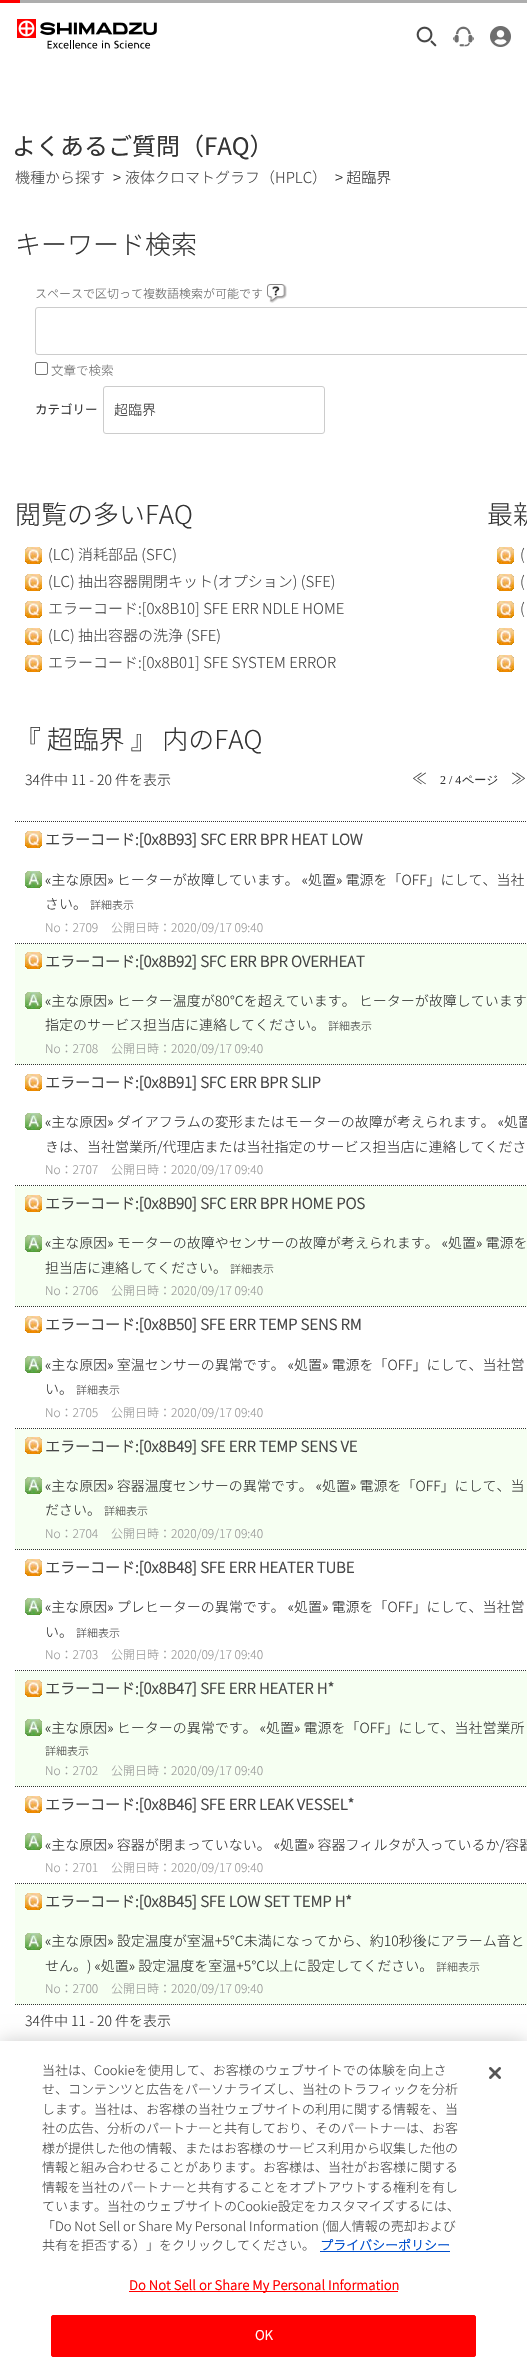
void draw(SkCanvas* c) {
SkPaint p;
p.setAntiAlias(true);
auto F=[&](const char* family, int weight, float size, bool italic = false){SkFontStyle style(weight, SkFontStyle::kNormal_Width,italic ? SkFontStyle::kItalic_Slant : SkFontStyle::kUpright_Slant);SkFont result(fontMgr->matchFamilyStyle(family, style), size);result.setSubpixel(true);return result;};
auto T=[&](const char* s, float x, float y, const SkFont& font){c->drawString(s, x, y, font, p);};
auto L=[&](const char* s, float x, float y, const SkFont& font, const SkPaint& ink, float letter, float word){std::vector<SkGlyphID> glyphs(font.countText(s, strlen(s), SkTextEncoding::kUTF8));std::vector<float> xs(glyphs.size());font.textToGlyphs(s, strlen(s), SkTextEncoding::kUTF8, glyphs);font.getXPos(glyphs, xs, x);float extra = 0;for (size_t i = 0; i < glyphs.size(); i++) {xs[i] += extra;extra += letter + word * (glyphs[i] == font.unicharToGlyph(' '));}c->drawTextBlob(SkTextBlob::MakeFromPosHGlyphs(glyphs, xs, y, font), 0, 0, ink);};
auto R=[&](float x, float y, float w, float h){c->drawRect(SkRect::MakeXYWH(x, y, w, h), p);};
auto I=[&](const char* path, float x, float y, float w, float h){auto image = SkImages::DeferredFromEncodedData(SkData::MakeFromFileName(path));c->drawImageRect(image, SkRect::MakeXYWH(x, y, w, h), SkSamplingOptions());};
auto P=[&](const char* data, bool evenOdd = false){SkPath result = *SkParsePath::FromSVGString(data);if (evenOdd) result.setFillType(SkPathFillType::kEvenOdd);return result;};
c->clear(0xffffffff);
p.setColor(0xffadadad);
R(20,0,507,3);
p.setColor(0xffff0000);
R(0,0,20,3);
I("1.png",17,19,140,30);
I("2.png",416,26,21,21);
I("3.png",453,26,21,21);
I("4.png",490,26,21,21);
auto f1 = F("Noto Sans CJK JP",400,24);
p.setColor(0xff333333);
T("よくあるご質問（FAQ）",12,155,f1);
auto f2 = F("Noto Sans CJK JP",300,15);
p.setColor(0xff464646);
T("機種から探す",15,183,f2);
p.setColor(0xff333333);
T(">",113,183,f2);
p.setColor(0xff464646);
T("液体クロマトグラフ（HPLC）",125,183,f2);
p.setColor(0xff333333);
T("> 超臨界",335,183,f2);
auto f3 = F("Noto Sans CJK JP",300,26);
T("キーワード検索",15,254,f3);
auto f4 = F("Noto Sans CJK JP",300,12);
p.setColor(0xff666666);
T("スペースで区切って複数語検索が可能です",35,298,f4);
I("5.png",267,284,20,19);
p.setStroke(true);
p.setStrokeWidth(1);
p.setColor(0xffcccccc);
c->drawRoundRect(SkRect::MakeXYWH(35.5,307.5,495,47),2.5,2.5,p);
p.setColor(0xff767676);
c->drawRoundRect(SkRect::MakeXYWH(35.5,362.5,12,12),1.5,1.5,p);
auto f5 = F("Noto Sans CJK JP",300,12.5);
p.setStroke(false);
p.setColor(0xff6e6e6e);
T("文章で検索",51,375,f5);
auto f6 = F("Noto Sans CJK JP",400,12.5);
p.setColor(0xff333333);
T("カテゴリー",35,414,f6);
p.setStroke(true);
p.setColor(0xffcccccc);
c->drawRoundRect(SkRect::MakeXYWH(103.5,386.5,221,47),2.5,2.5,p);
auto f7 = F("Noto Sans CJK JP",300,14);
p.setStroke(false);
p.setColor(0xff333333);
T("超臨界",114,415,f7);
T("閲覧の多いFAQ",15,524,f3);
I("6.png",25,547,17,17);
p.setColor(0xff464646);
T("(LC) 消耗部品 (SFC)",48,560,f2);
I("6.png",25,574,17,17);
T("(LC) 抽出容器開閉キット(オプション) (SFE)",48,587,f2);
I("6.png",25,601,17,17);
T("エラーコード:[0x8B10] SFE ERR NDLE HOME",48,614,f2);
I("6.png",25,628,17,17);
T("(LC) 抽出容器の洗浄 (SFE)",48,641,f2);
I("6.png",25,655,17,17);
T("エラーコード:[0x8B01] SFE SYSTEM ERROR",48,668,f2);
p.setColor(0xff333333);
T("最新",487,524,f3);
I("6.png",497,547,17,17);
p.setColor(0xff464646);
T("(",520,560,f2);
I("6.png",497,574,17,17);
T("(",520,587,f2);
I("6.png",497,601,17,17);
T("(",520,614,f2);
I("6.png",497,628,17,17);
I("6.png",497,655,17,17);
p.setColor(0xff333333);
T("『 超臨界 』 内のFAQ",15,749,f3);
T("34件中 11 - 20 件を表示",25,785,f7);
p.setColor(0xff464646);
T("≪",412,784,f2);
auto f8 = F("Liberation Serif",400,12);
p.setColor(0xff333333);
T("2 / 4",440,784,f8);
auto f9 = F("WenQuanYi Zen Hei",500,12);
T("ページ",462,784,f9);
p.setColor(0xff464646);
T("≫",511,784,f2);
p.setStroke(true);
p.setColor(0xff333333);
p.setPathEffect(SkDashPathEffect::Make({{1,1}}, 0));
c->drawPath(P("M15 821.5h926"),p);
p.setPathEffect(nullptr);
p.setPathEffect(SkDashPathEffect::Make({{1,1}}, 0));
c->drawPath(P("M15 943.5h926"),p);
p.setPathEffect(nullptr);
I("6.png",25,831,17,17);
auto f10 = F("Noto Sans CJK JP",700,15);
p.setStroke(false);
p.setColor(0xff464646);
T("エラーコード:[0x8B93] SFC ERR BPR HEAT LOW",45,845,f10);
I("7.png",25,871,17,17);
p.setColor(0xff333333);
T("«主な原因» ヒーターが故障しています。 «処置» 電源を「OFF」にして、当社",45,885,f7);
T("さい。",45,909,f7);
auto f11 = F("Noto Sans CJK JP",300,11);
p.setColor(0xff464646);
T("詳細表示",90,909,f11);
p.setColor(0xff999999);
T("No：2709",45,932,f4);
T("公開日時：2020/09/17 09:40",111,932,f4);
p.setColor(0xfff6fff2);
R(15,944,512,121);
p.setStroke(true);
p.setColor(0xff333333);
p.setPathEffect(SkDashPathEffect::Make({{1,1}}, 0));
c->drawPath(P("M15 1064.5h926"),p);
p.setPathEffect(nullptr);
I("8.png",25,952,17,17);
p.setStroke(false);
p.setColor(0xff464646);
T("エラーコード:[0x8B92] SFC ERR BPR OVERHEAT",45,967,f10);
I("9.png",25,992,17,17);
p.setColor(0xff333333);
T("«主な原因» ヒーター温度が80℃を超えています。 ヒーターが故障しています",45,1006,f7);
T("指定のサービス担当店に連絡してください。",45,1030,f7);
p.setColor(0xff464646);
T("詳細表示",328,1030,f11);
p.setColor(0xff999999);
T("No：2708",45,1053,f4);
T("公開日時：2020/09/17 09:40",111,1053,f4);
p.setStroke(true);
p.setColor(0xff333333);
p.setPathEffect(SkDashPathEffect::Make({{1,1}}, 0));
c->drawPath(P("M15 1185.5h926"),p);
p.setPathEffect(nullptr);
I("6.png",25,1074,17,17);
p.setStroke(false);
p.setColor(0xff464646);
T("エラーコード:[0x8B91] SFC ERR BPR SLIP",45,1088,f10);
I("7.png",25,1113,17,17);
p.setColor(0xff333333);
T("«主な原因» ダイアフラムの変形またはモーターの故障が考えられます。 «処置",45,1127,f7);
T("きは、当社営業所/代理店または当社指定のサービス担当店に連絡してくださ",45,1152,f7);
p.setColor(0xff999999);
T("No：2707",45,1174,f4);
T("公開日時：2020/09/17 09:40",111,1174,f4);
p.setColor(0xfff6fff2);
R(15,1186,512,121);
p.setStroke(true);
p.setColor(0xff333333);
p.setPathEffect(SkDashPathEffect::Make({{1,1}}, 0));
c->drawPath(P("M15 1306.5h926"),p);
p.setPathEffect(nullptr);
I("8.png",25,1195,17,17);
p.setStroke(false);
p.setColor(0xff464646);
T("エラーコード:[0x8B90] SFC ERR BPR HOME POS",45,1209,f10);
I("9.png",25,1235,17,17);
p.setColor(0xff333333);
T("«主な原因» モーターの故障やセンサーの故障が考えられます。 «処置» 電源を",45,1248,f7);
T("担当店に連絡してください。",45,1273,f7);
p.setColor(0xff464646);
T("詳細表示",230,1273,f11);
p.setColor(0xff999999);
T("No：2706",45,1295,f4);
T("公開日時：2020/09/17 09:40",111,1295,f4);
p.setStroke(true);
p.setColor(0xff333333);
p.setPathEffect(SkDashPathEffect::Make({{1,1}}, 0));
c->drawPath(P("M15 1428.5h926"),p);
p.setPathEffect(nullptr);
I("6.png",25,1316,17,17);
p.setStroke(false);
p.setColor(0xff464646);
T("エラーコード:[0x8B50] SFE ERR TEMP SENS RM",45,1330,f10);
I("7.png",25,1356,17,17);
p.setColor(0xff333333);
T("«主な原因» 室温センサーの異常です。 «処置» 電源を「OFF」にして、当社営",45,1370,f7);
T("い。",45,1394,f7);
p.setColor(0xff464646);
T("詳細表示",76,1394,f11);
p.setColor(0xff999999);
T("No：2705",45,1417,f4);
T("公開日時：2020/09/17 09:40",111,1417,f4);
p.setColor(0xfff6fff2);
R(15,1429,512,121);
p.setStroke(true);
p.setColor(0xff333333);
p.setPathEffect(SkDashPathEffect::Make({{1,1}}, 0));
c->drawPath(P("M15 1549.5h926"),p);
p.setPathEffect(nullptr);
I("8.png",25,1437,17,17);
p.setStroke(false);
p.setColor(0xff464646);
T("エラーコード:[0x8B49] SFE ERR TEMP SENS VE",45,1452,f10);
I("9.png",25,1477,17,17);
p.setColor(0xff333333);
T("«主な原因» 容器温度センサーの異常です。 «処置» 電源を「OFF」にして、当",45,1491,f7);
T("ださい。",45,1515,f7);
p.setColor(0xff464646);
T("詳細表示",104,1515,f11);
p.setColor(0xff999999);
T("No：2704",45,1538,f4);
T("公開日時：2020/09/17 09:40",111,1538,f4);
p.setStroke(true);
p.setColor(0xff333333);
p.setPathEffect(SkDashPathEffect::Make({{1,1}}, 0));
c->drawPath(P("M15 1670.5h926"),p);
p.setPathEffect(nullptr);
I("6.png",25,1559,17,17);
p.setStroke(false);
p.setColor(0xff464646);
T("エラーコード:[0x8B48] SFE ERR HEATER TUBE",45,1573,f10);
I("7.png",25,1598,17,17);
p.setColor(0xff333333);
T("«主な原因» プレヒーターの異常です。 «処置» 電源を「OFF」にして、当社営",45,1612,f7);
T("い。",45,1637,f7);
p.setColor(0xff464646);
T("詳細表示",76,1637,f11);
p.setColor(0xff999999);
T("No：2703",45,1659,f4);
T("公開日時：2020/09/17 09:40",111,1659,f4);
p.setColor(0xfff6fff2);
R(15,1671,512,116);
p.setStroke(true);
p.setColor(0xff333333);
p.setPathEffect(SkDashPathEffect::Make({{1,1}}, 0));
c->drawPath(P("M15 1786.5h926"),p);
p.setPathEffect(nullptr);
I("8.png",25,1680,17,17);
p.setStroke(false);
p.setColor(0xff464646);
T("エラーコード:[0x8B47] SFE ERR HEATER H*",45,1694,f10);
I("9.png",25,1719,17,17);
p.setColor(0xff333333);
T("«主な原因» ヒーターの異常です。 «処置» 電源を「OFF」にして、当社営業所",45,1733,f7);
p.setColor(0xff464646);
T("詳細表示",45,1755,f11);
p.setColor(0xff999999);
T("No：2702",45,1775,f4);
T("公開日時：2020/09/17 09:40",111,1775,f4);
p.setStroke(true);
p.setColor(0xff333333);
p.setPathEffect(SkDashPathEffect::Make({{1,1}}, 0));
c->drawPath(P("M15 1883.5h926"),p);
p.setPathEffect(nullptr);
I("6.png",25,1796,17,17);
p.setStroke(false);
p.setColor(0xff464646);
T("エラーコード:[0x8B46] SFE ERR LEAK VESSEL*",45,1810,f10);
I("7.png",25,1833,17,17);
p.setColor(0xff333333);
T("«主な原因» 容器が閉まっていない。 «処置» 容器フィルタが入っているか/容器",45,1850,f7);
p.setColor(0xff999999);
T("No：2701",45,1872,f4);
T("公開日時：2020/09/17 09:40",111,1872,f4);
p.setColor(0xfff6fff2);
R(15,1884,512,121);
p.setStroke(true);
p.setColor(0xff333333);
p.setPathEffect(SkDashPathEffect::Make({{1,1}}, 0));
c->drawPath(P("M15 2004.5h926"),p);
p.setPathEffect(nullptr);
I("8.png",25,1893,17,17);
p.setStroke(false);
p.setColor(0xff464646);
T("エラーコード:[0x8B45] SFE LOW SET TEMP H*",45,1907,f10);
I("9.png",25,1933,17,17);
p.setColor(0xff333333);
T("«主な原因» 設定温度が室温+5℃未満になってから、約10秒後にアラーム音と",45,1946,f7);
T("せん。) «処置» 設定温度を室温+5℃以上に設定してください。",45,1971,f7);
p.setColor(0xff464646);
T("詳細表示",436,1971,f11);
p.setColor(0xff999999);
T("No：2700",45,1993,f4);
T("公開日時：2020/09/17 09:40",111,1993,f4);
p.setColor(0xff333333);
T("34件中 11 - 20 件を表示",25,2026,f7);
p.setColor(0x33000000);
p.setMaskFilter(SkMaskFilter::MakeBlur(kNormal_SkBlurStyle, 9));
c->drawRect(SkRect::MakeXYWH(0,2041,527,326),p);
p.setMaskFilter(nullptr);
p.setColor(0xffffffff);
R(0,2041,527,326);
auto f12 = F("Noto Sans CJK JP",300,13);
p.setColor(0xff464646);
T("当社は、Cookieを使用して、お客様のウェブサイトでの体験を向上さ",42,2075,f12);
T("せ、コンテンツと広告をパーソナライズし、当社のトラフィックを分析",42,2094,f12);
T("します。当社は、お客様の当社ウェブサイトの利用に関する情報を、当",42,2114,f12);
T("社の広告、分析のパートナーと共有しており、そのパートナーは、お客",42,2133,f12);
T("様が提供した他の情報、またはお客様のサービス利用から収集した他の",42,2153,f12);
T("情報と組み合わせることがあります。お客様は、当社がお客様に関する",42,2172,f12);
T("情報を当社のパートナーと共有することをオプトアウトする権利を有し",42,2192,f12);
T("ています。当社のウェブサイトのCookie設定をカスタマイズするには、",42,2211,f12);
T("「Do Not Sell or Share My Personal Information (個人情報の売却および",42,2231,f12);
T("共有を拒否する）」をクリックしてください。",42,2250,f12);
auto f13 = F("Noto Sans CJK JP",700,13);
p.setColor(0xff004ecc);
T("プライバシーポリシー",320,2250,f13);
R(320,2251,130,1);
p.setColor(0xffff0000);
R(129,2291,269,1);
L("Do Not Sell or Share My Personal Information",129,2290,f13,p,.15,0);
c->drawRoundRect(SkRect::MakeXYWH(51.5,2315.5,424,41),1.5,1.5,p);
p.setStroke(true);
c->drawRoundRect(SkRect::MakeXYWH(51.5,2315.5,424,41),1.5,1.5,p);
p.setStroke(false);
p.setColor(0xffffffff);
L("OK",255,2340,f13,p,.15,0);
I("10.png",489,2067,12,12);
}
